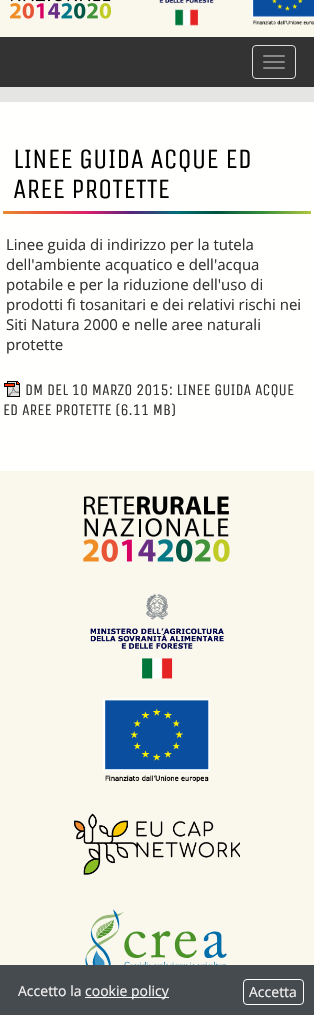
void draw(SkCanvas* c) {
SkPaint p;
p.setAntiAlias(true);
auto F=[&](const char* family, int weight, float size, bool italic = false){SkFontStyle style(weight, SkFontStyle::kNormal_Width,italic ? SkFontStyle::kItalic_Slant : SkFontStyle::kUpright_Slant);SkFont result(fontMgr->matchFamilyStyle(family, style), size);result.setSubpixel(true);return result;};
auto T=[&](const char* s, float x, float y, const SkFont& font){c->drawString(s, x, y, font, p);};
auto R=[&](float x, float y, float w, float h){c->drawRect(SkRect::MakeXYWH(x, y, w, h), p);};
auto Q=[&](float x, float y, float w, float h, float radius){c->drawRoundRect(SkRect::MakeXYWH(x, y, w, h), radius, radius, p);};
auto I=[&](const char* path, float x, float y, float w, float h){auto image = SkImages::DeferredFromEncodedData(SkData::MakeFromFileName(path));c->drawImageRect(image, SkRect::MakeXYWH(x, y, w, h), SkSamplingOptions());};
c->clear(0xfffffffd);
p.setColor(0xfffaf8ed);
R(0,0,314,37);
I("1.png",10,0,102,19);
I("2.png",159,0,55,26);
I("3.png",251,0,63,26);
p.setColor(0xff333333);
R(0,37,314,50);
p.setStroke(true);
p.setStrokeWidth(1);
p.setColor(0xffdddddd);
c->drawRoundRect(SkRect::MakeXYWH(252.5,45.5,43,33),3.5,3.5,p);
p.setStroke(false);
p.setColor(0xff888888);
Q(263,55,22,2,1);
Q(263,61,22,2,1);
Q(263,67,22,2,1);
p.setColor(0xffe5e5e3);
R(0,87,314,15);
I("4.png",3,211,308,3);
auto f1 = F("Unica One",400,28);
p.setColor(0xff000000);
T("LINEE GUIDA ACQUE ED",13,168,f1);
T("AREE PROTETTE",13,198,f1);
auto f2 = F("Open Sans",400,15);
p.setColor(0xff333333);
T("Linee guida di indirizzo per la tutela",6,250,f2);
T("dell'ambiente acquatico e dell'acqua",6,270,f2);
T("potabile e per la riduzione dell'uso di",6,290,f2);
T("prodotti fi tosanitari e dei relativi rischi nei",6,310,f2);
T("Siti Natura 2000 e nelle aree naturali",6,330,f2);
T("protette",6,350,f2);
I("5.png",4,381,16,16);
auto f3 = F("Unica One",400,16);
T("DM DEL 10 MARZO 2015: LINEE GUIDA ACQUE",25,395,f3);
T("ED AREE PROTETTE (6.11 MB)",3,415,f3);
p.setColor(0xfffaf8ed);
R(0,471,314,494);
I("6.png",83,496,147,66);
I("7.png",90,594,134,85);
I("8.png",103,698,108,84);
I("9.png",74,813,166,62);
I("10.png",85,909,142,56);
p.setColor(0xff464b4f);
R(0,965,314,50);
auto f4 = F("Open Sans",400,14);
p.setColor(0xfff5f3f3);
T("Accetto la",18,996,f4);
R(85,997,84,1);
T("cookie policy",85,996,f4);
p.setStroke(true);
p.setColor(0xffffffff);
c->drawRoundRect(SkRect::MakeXYWH(243.5,979.5,60,25),3.5,3.5,p);
p.setStroke(false);
p.setColor(0xfff5f3f3);
T("Accetta",249,997,f4);
}
